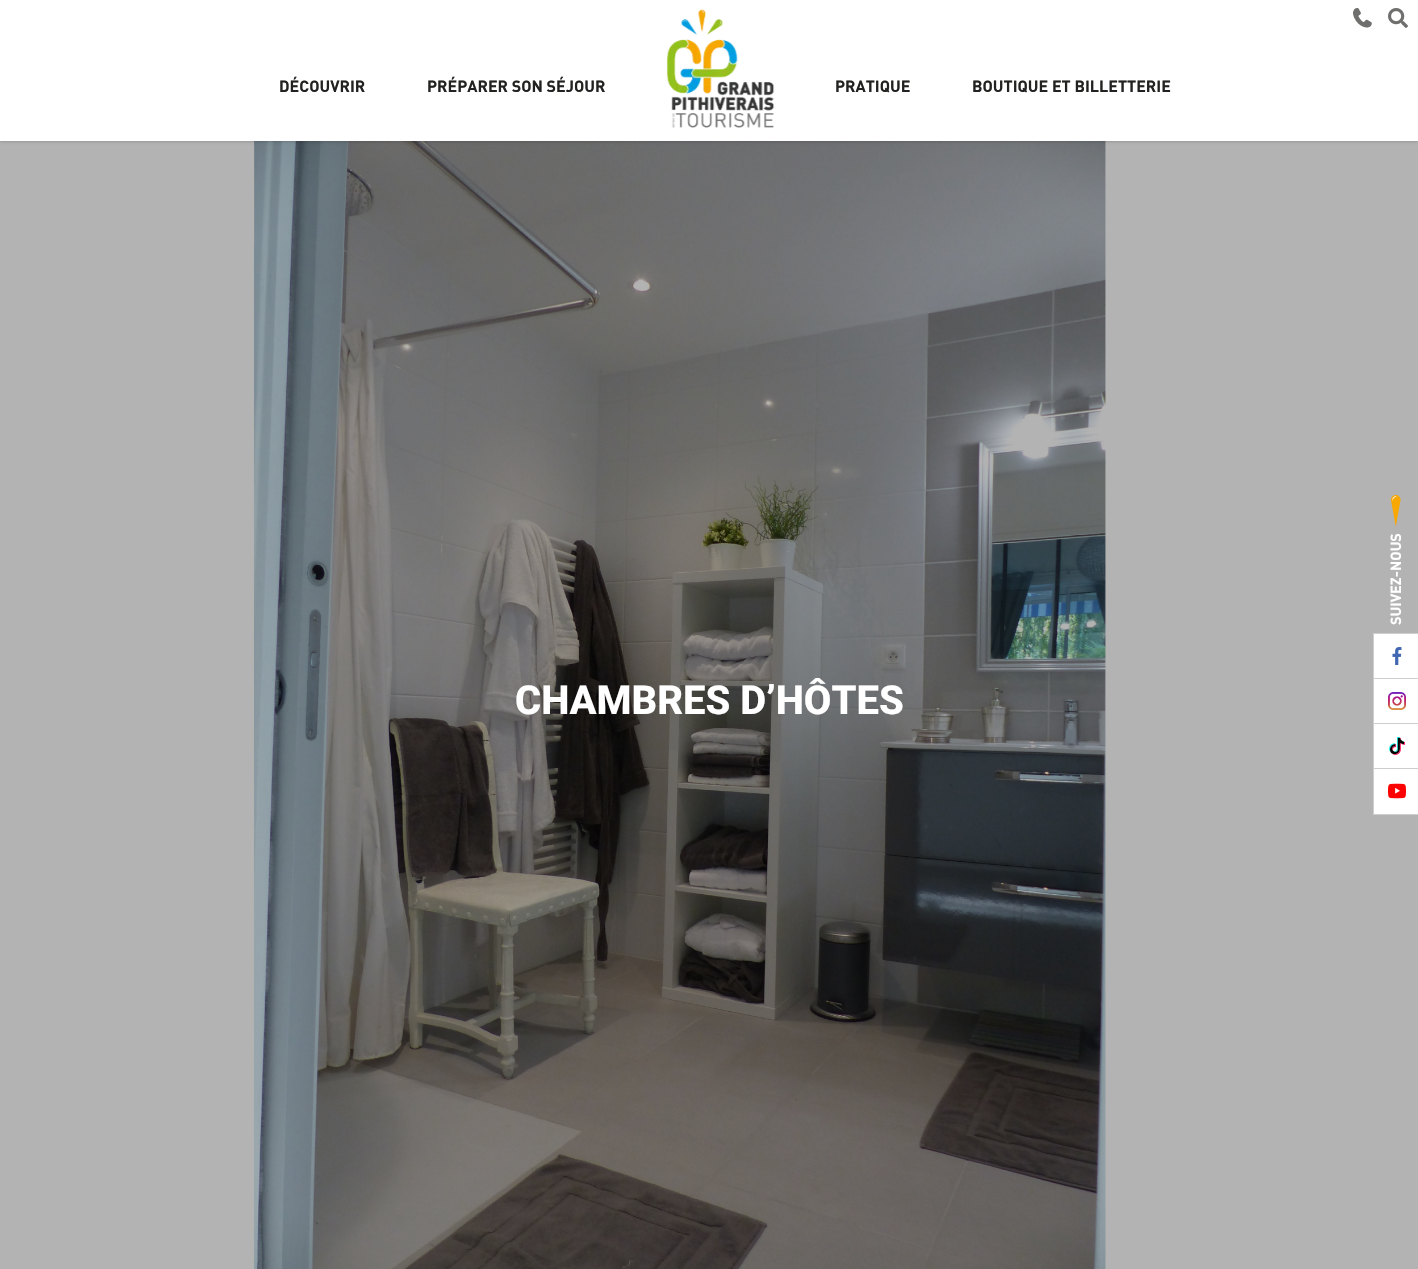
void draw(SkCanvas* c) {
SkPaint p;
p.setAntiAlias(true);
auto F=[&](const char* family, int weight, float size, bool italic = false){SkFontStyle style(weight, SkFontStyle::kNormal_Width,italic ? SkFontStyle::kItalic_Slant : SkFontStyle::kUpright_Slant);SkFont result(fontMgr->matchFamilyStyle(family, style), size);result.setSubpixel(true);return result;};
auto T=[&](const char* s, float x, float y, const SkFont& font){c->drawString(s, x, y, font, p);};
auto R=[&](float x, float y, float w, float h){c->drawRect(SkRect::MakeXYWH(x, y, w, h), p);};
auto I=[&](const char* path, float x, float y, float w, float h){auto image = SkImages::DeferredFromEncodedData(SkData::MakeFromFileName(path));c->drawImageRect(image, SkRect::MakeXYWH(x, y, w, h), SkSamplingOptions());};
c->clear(0xffb3b3b3);
I("9.png",253,141,853,1128);
p.setColor(0x0f000000);
p.setMaskFilter(SkMaskFilter::MakeBlur(kNormal_SkBlurStyle, 1));
c->drawRect(SkRect::MakeXYWH(0,1,1418,141),p);
p.setMaskFilter(nullptr);
p.setColor(0x1a000000);
p.setMaskFilter(SkMaskFilter::MakeBlur(kNormal_SkBlurStyle, 1.5));
c->drawRect(SkRect::MakeXYWH(0,1,1418,141),p);
p.setMaskFilter(nullptr);
p.setColor(0xffffffff);
R(0,0,1418,141);
I("1.png",1353,8,19,20);
I("2.png",1388,8,20,20);
auto f1 = F("DIN",700,16);
p.setColor(0xff222221);
T("DÉCOUVRIR",279,92,f1);
T("PRÉPARER SON SÉJOUR",427,92,f1);
I("3.png",666,9,109,119);
T("PRATIQUE",835,92,f1);
T("BOUTIQUE ET BILLETTERIE",972,92,f1);
I("4.png",1391,495,10,31);
auto f2 = F("DIN",700,14.5);
p.setColor(0xffffffff);
c->save();
c->rotate(-90,1401,625);
T("SUIVEZ-NOUS",1401,625,f2);
c->restore();
p.setStroke(true);
p.setStrokeWidth(1);
p.setColor(0xffcecece);
c->drawRect(SkRect::MakeXYWH(1373.5,633.5,44,181),p);
p.setStroke(false);
p.setColor(0xffffffff);
R(1374,634,44,44);
p.setColor(0xffcecece);
R(1374,678,44,1);
I("5.png",1392,647,10,18);
p.setColor(0xffffffff);
R(1374,679,44,44);
p.setColor(0xffcecece);
R(1374,723,44,1);
I("6.png",1388,692,18,18);
p.setColor(0xffffffff);
R(1374,724,44,44);
p.setColor(0xffcecece);
R(1374,768,44,1);
I("7.png",1389,737,16,18);
p.setColor(0xffffffff);
R(1374,769,44,45);
I("8.png",1388,783,18,16);
auto f3 = F("Roboto",800,40);
T("CHAMBRES D’HÔTES",515,714,f3);
}
